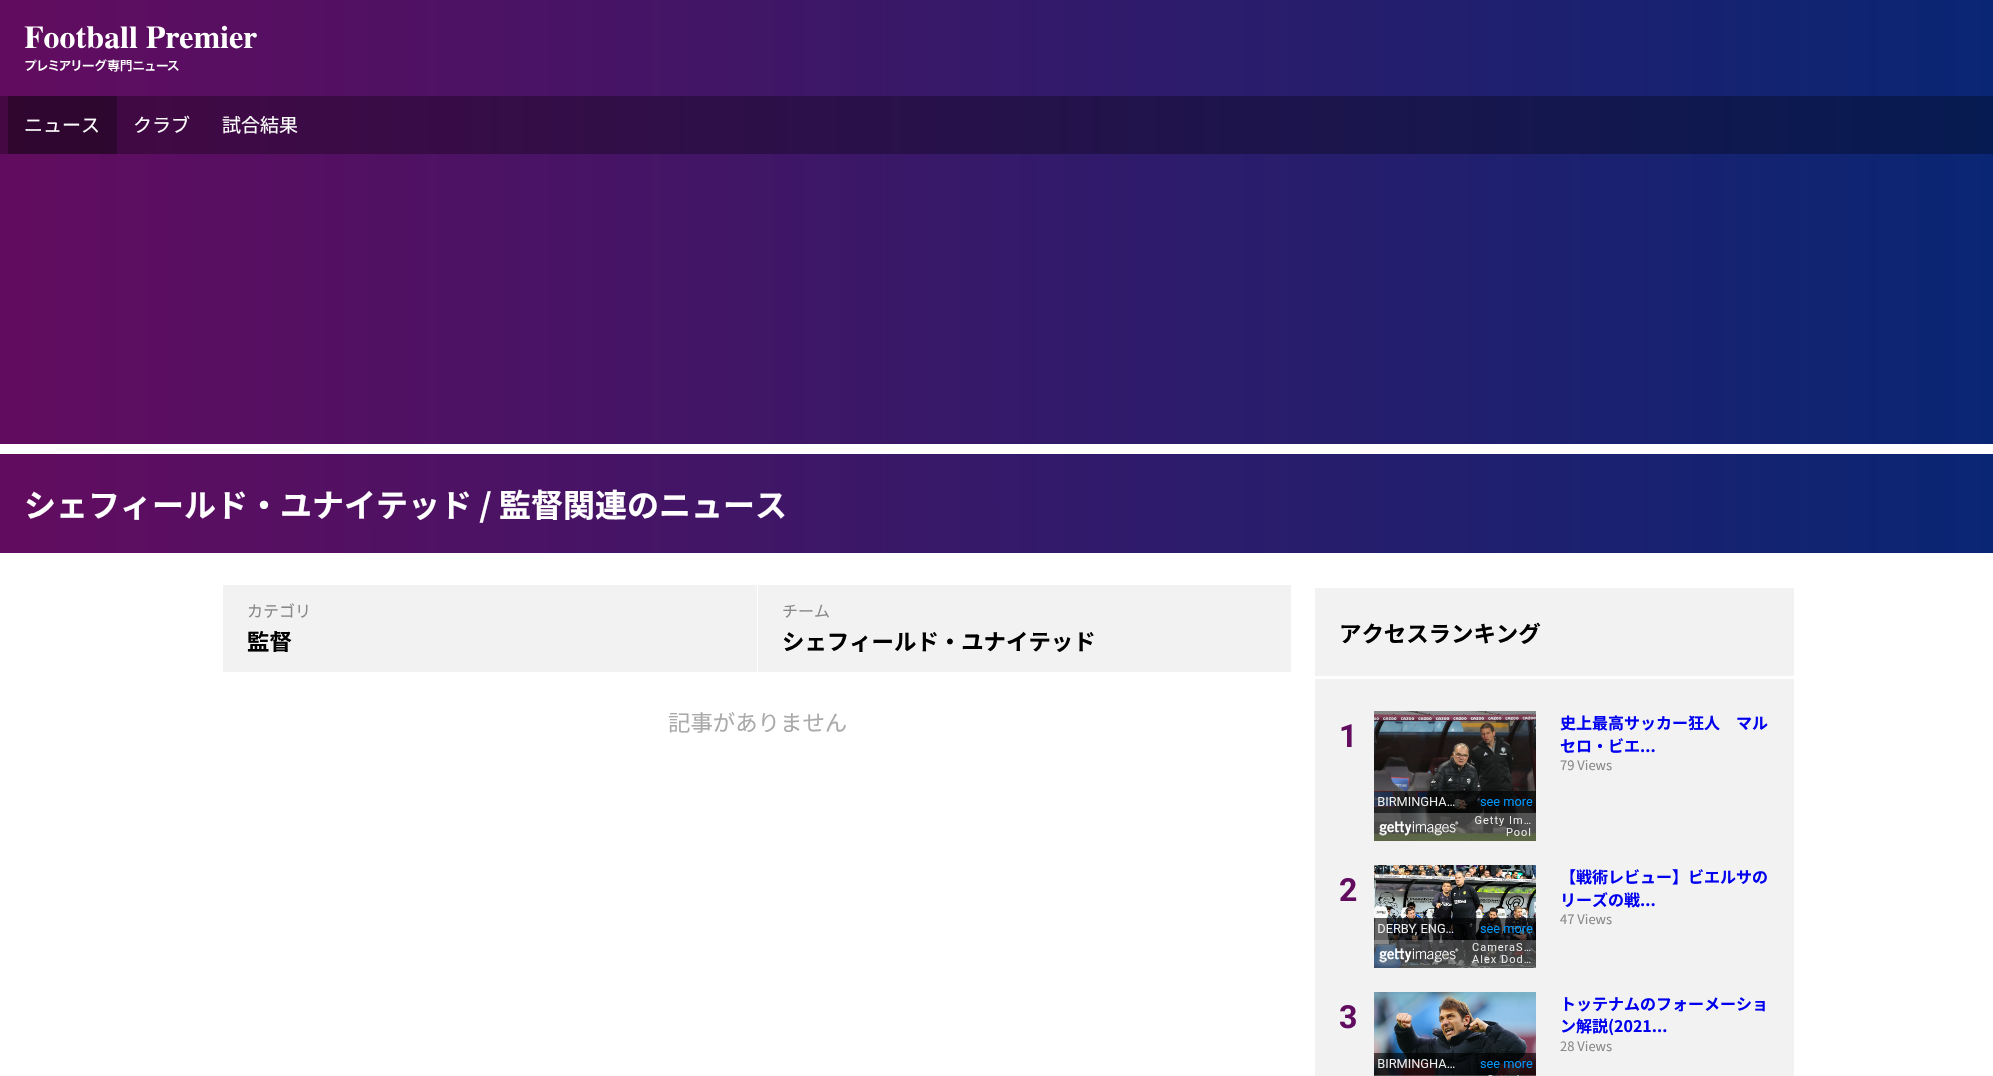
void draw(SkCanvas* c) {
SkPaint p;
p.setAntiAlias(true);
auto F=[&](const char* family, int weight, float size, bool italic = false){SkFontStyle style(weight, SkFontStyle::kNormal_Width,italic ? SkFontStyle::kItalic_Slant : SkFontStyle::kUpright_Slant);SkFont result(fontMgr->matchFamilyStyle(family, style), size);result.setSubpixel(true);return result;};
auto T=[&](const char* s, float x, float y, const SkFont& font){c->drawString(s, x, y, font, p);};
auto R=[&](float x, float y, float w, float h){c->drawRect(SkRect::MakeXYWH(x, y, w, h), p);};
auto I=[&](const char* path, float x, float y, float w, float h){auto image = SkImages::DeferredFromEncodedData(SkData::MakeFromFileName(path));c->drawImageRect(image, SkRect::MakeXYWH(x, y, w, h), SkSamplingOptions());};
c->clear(0xffffffff);
{
const SkColor colors[] = {0xff620c5f,0xff092674};
const float stops[] = {0,1};
const SkPoint ends[] = {{0,222}, {1993,222}};
p.setShader(SkGradientShader::MakeLinear(ends, colors, stops, 2, SkTileMode::kClamp));
p.setAlpha(255);
}
R(0,0,1993,444);
{
const SkColor colors[] = {0xff450843,0xff061b51};
const float stops[] = {0,1};
const SkPoint ends[] = {{0,222}, {1993,222}};
p.setShader(SkGradientShader::MakeLinear(ends, colors, stops, 2, SkTileMode::kClamp));
p.setAlpha(255);
}
R(0,96,1993,58);
{
const SkColor colors[] = {0xff30062f,0xff041339};
const float stops[] = {0,1};
const SkPoint ends[] = {{0,222}, {1993,222}};
p.setShader(SkGradientShader::MakeLinear(ends, colors, stops, 2, SkTileMode::kClamp));
p.setAlpha(255);
}
R(8,96,109,58);
I("1.png",24,25,233,47);
auto f1 = F("Noto Sans JP",400,19);
p.setShader(nullptr);
p.setColor(0xffffffff);
T("ニュース",24,132,f1);
T("クラブ",133,132,f1);
T("試合結果",222,132,f1);
{
const SkColor colors[] = {0xff620c5f,0xff092674};
const float stops[] = {0,1};
const SkPoint ends[] = {{0,504}, {1993,503}};
p.setShader(SkGradientShader::MakeLinear(ends, colors, stops, 2, SkTileMode::kClamp));
p.setAlpha(255);
}
R(0,454,1993,99);
auto f2 = F("Noto Sans JP",700,32);
p.setShader(nullptr);
p.setColor(0xffffffff);
T("シェフィールド・ユナイテッド / 監督関連のニュース",24,517,f2);
p.setColor(0xfff2f2f2);
R(223,585,534,87);
auto f3 = F("Noto Sans JP",400,16);
p.setColor(0xff888888);
T("カテゴリ",247,617,f3);
auto f4 = F("Noto Sans JP",700,22.4);
p.setColor(0xff000000);
T("監督",247,650,f4);
p.setColor(0xfff2f2f2);
R(758,585,533,87);
p.setColor(0xff888888);
T("チーム",782,617,f3);
p.setColor(0xff000000);
T("シェフィールド・ユナイテッド",782,650,f4);
auto f5 = F("Noto Sans JP",400,22.4);
p.setColor(0xffaaaaaa);
T("記事がありません",668,731,f5);
p.setColor(0xfff2f2f2);
R(1315,588,479,488);
p.setColor(0xffffffff);
R(1315,676,479,3);
p.setColor(0xff000000);
T("アクセスランキング",1339,642,f4);
auto f6 = F("Roboto",700,32);
p.setColor(0xff620c5f);
T("1",1339,747,f6);
I("2.png",1374,711,162,130);
auto f7 = F("Noto Sans JP",700,16);
p.setColor(0xff0000ee);
T("史上最高サッカー狂人　マル",1560,729,f7);
T("セロ・ビエ...",1560,752,f7);
auto f8 = F("Noto Sans JP",400,13);
p.setColor(0xff888888);
T("79 Views",1560,770,f8);
p.setColor(0xff620c5f);
T("2",1339,901,f6);
I("3.png",1374,865,162,103);
p.setColor(0xff0000ee);
T("【戦術レビュー】ビエルサの",1560,883,f7);
T("リーズの戦...",1560,906,f7);
p.setColor(0xff888888);
T("47 Views",1560,924,f8);
p.setColor(0xff620c5f);
T("3",1339,1028,f6);
I("4.png",1374,992,162,84);
p.setColor(0xff0000ee);
T("トッテナムのフォーメーショ",1560,1010,f7);
T("ン解説(2021...",1560,1032,f7);
p.setColor(0xff888888);
T("28 Views",1560,1051,f8);
}
